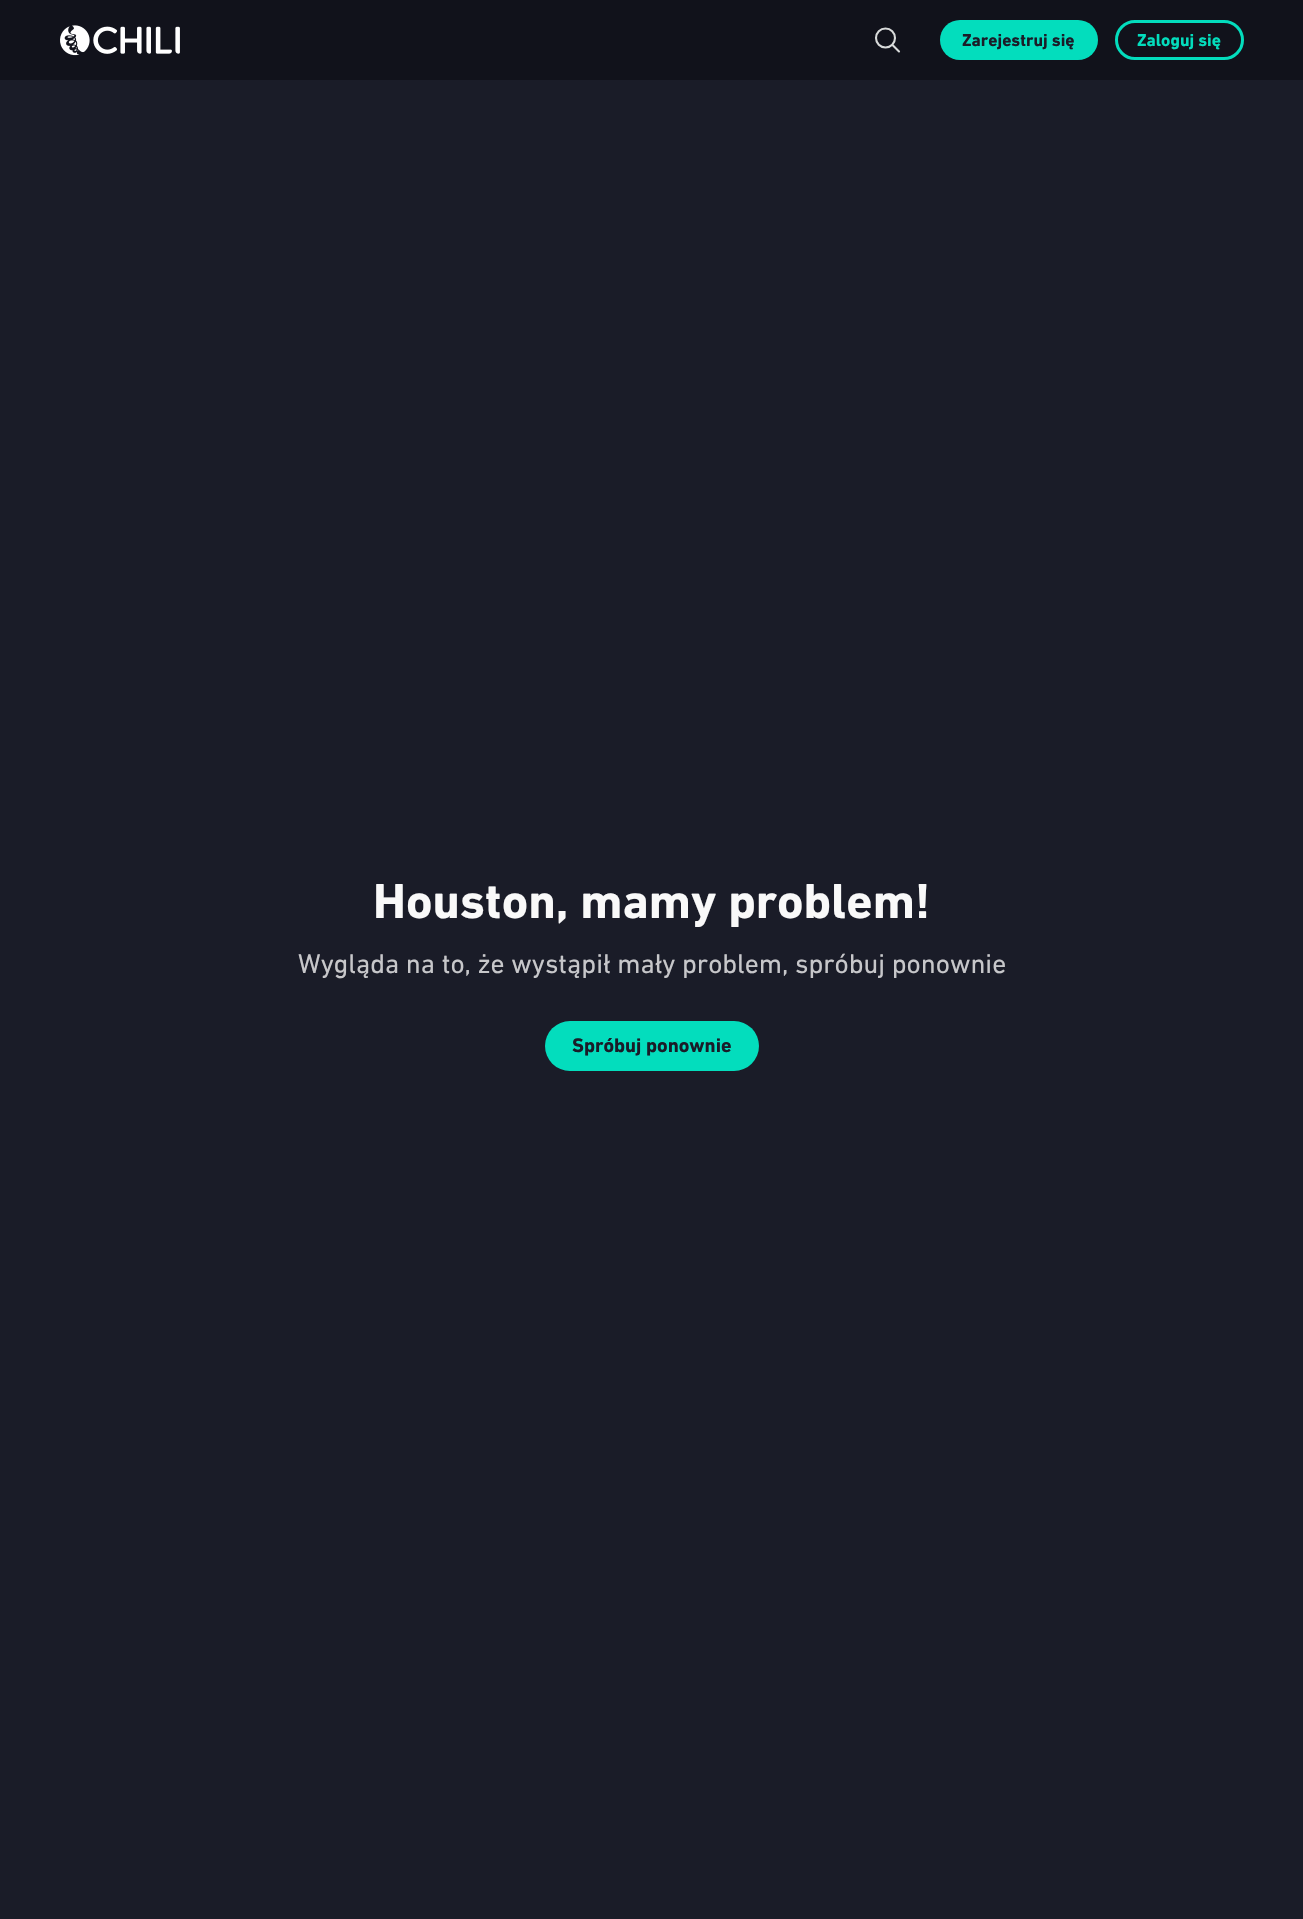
void draw(SkCanvas* c) {
SkPaint p;
p.setAntiAlias(true);
auto F=[&](const char* family, int weight, float size, bool italic = false){SkFontStyle style(weight, SkFontStyle::kNormal_Width,italic ? SkFontStyle::kItalic_Slant : SkFontStyle::kUpright_Slant);SkFont result(fontMgr->matchFamilyStyle(family, style), size);result.setSubpixel(true);return result;};
auto T=[&](const char* s, float x, float y, const SkFont& font){c->drawString(s, x, y, font, p);};
auto R=[&](float x, float y, float w, float h){c->drawRect(SkRect::MakeXYWH(x, y, w, h), p);};
auto Q=[&](float x, float y, float w, float h, float radius){c->drawRoundRect(SkRect::MakeXYWH(x, y, w, h), radius, radius, p);};
auto I=[&](const char* path, float x, float y, float w, float h){auto image = SkImages::DeferredFromEncodedData(SkData::MakeFromFileName(path));c->drawImageRect(image, SkRect::MakeXYWH(x, y, w, h), SkSamplingOptions());};
auto P=[&](const char* data, bool evenOdd = false){SkPath result = *SkParsePath::FromSVGString(data);if (evenOdd) result.setFillType(SkPathFillType::kEvenOdd);return result;};
c->clear(0xff1a1c28);
p.setColor(0xff11121b);
R(0,0,1303,80);
I("1.png",60,25,120,31);
p.setStroke(true);
p.setStrokeWidth(2.1);
p.setStrokeCap(SkPaint::kRound_Cap);
p.setColor(0xffd8dada);
c->drawPath(P("M899 51.5l-6-6"),p);
p.setStrokeCap(SkPaint::kButt_Cap);
c->drawCircle(885.5,38,9.5,p);
p.setStroke(false);
p.setColor(0xff03ddbd);
Q(940,20,158,40,20);
auto f1 = F("DIN Next",700,17.5);
p.setColor(0xff1a1c28);
T("Zarejestruj się",962,46,f1);
p.setStroke(true);
p.setStrokeWidth(3);
p.setColor(0xff03ddbd);
c->drawRoundRect(SkRect::MakeXYWH(1116.5,21.5,126,37),18.5,18.5,p);
p.setStroke(false);
T("Zaloguj się",1137,46,f1);
auto f2 = F("DIN Next",700,50);
p.setColor(0xfff9f9f9);
T("Houston, mamy problem!",373,918,f2);
auto f3 = F("DIN Next",400,27.5);
p.setColor(0xffc7c7ca);
T("Wygląda na to, że wystąpił mały problem, spróbuj ponownie",298,973,f3);
p.setColor(0xff03ddbd);
Q(545,1021,214,50,25);
auto f4 = F("DIN Next",700,20);
p.setColor(0xff1a1c28);
T("Spróbuj ponownie",572,1052,f4);
}
